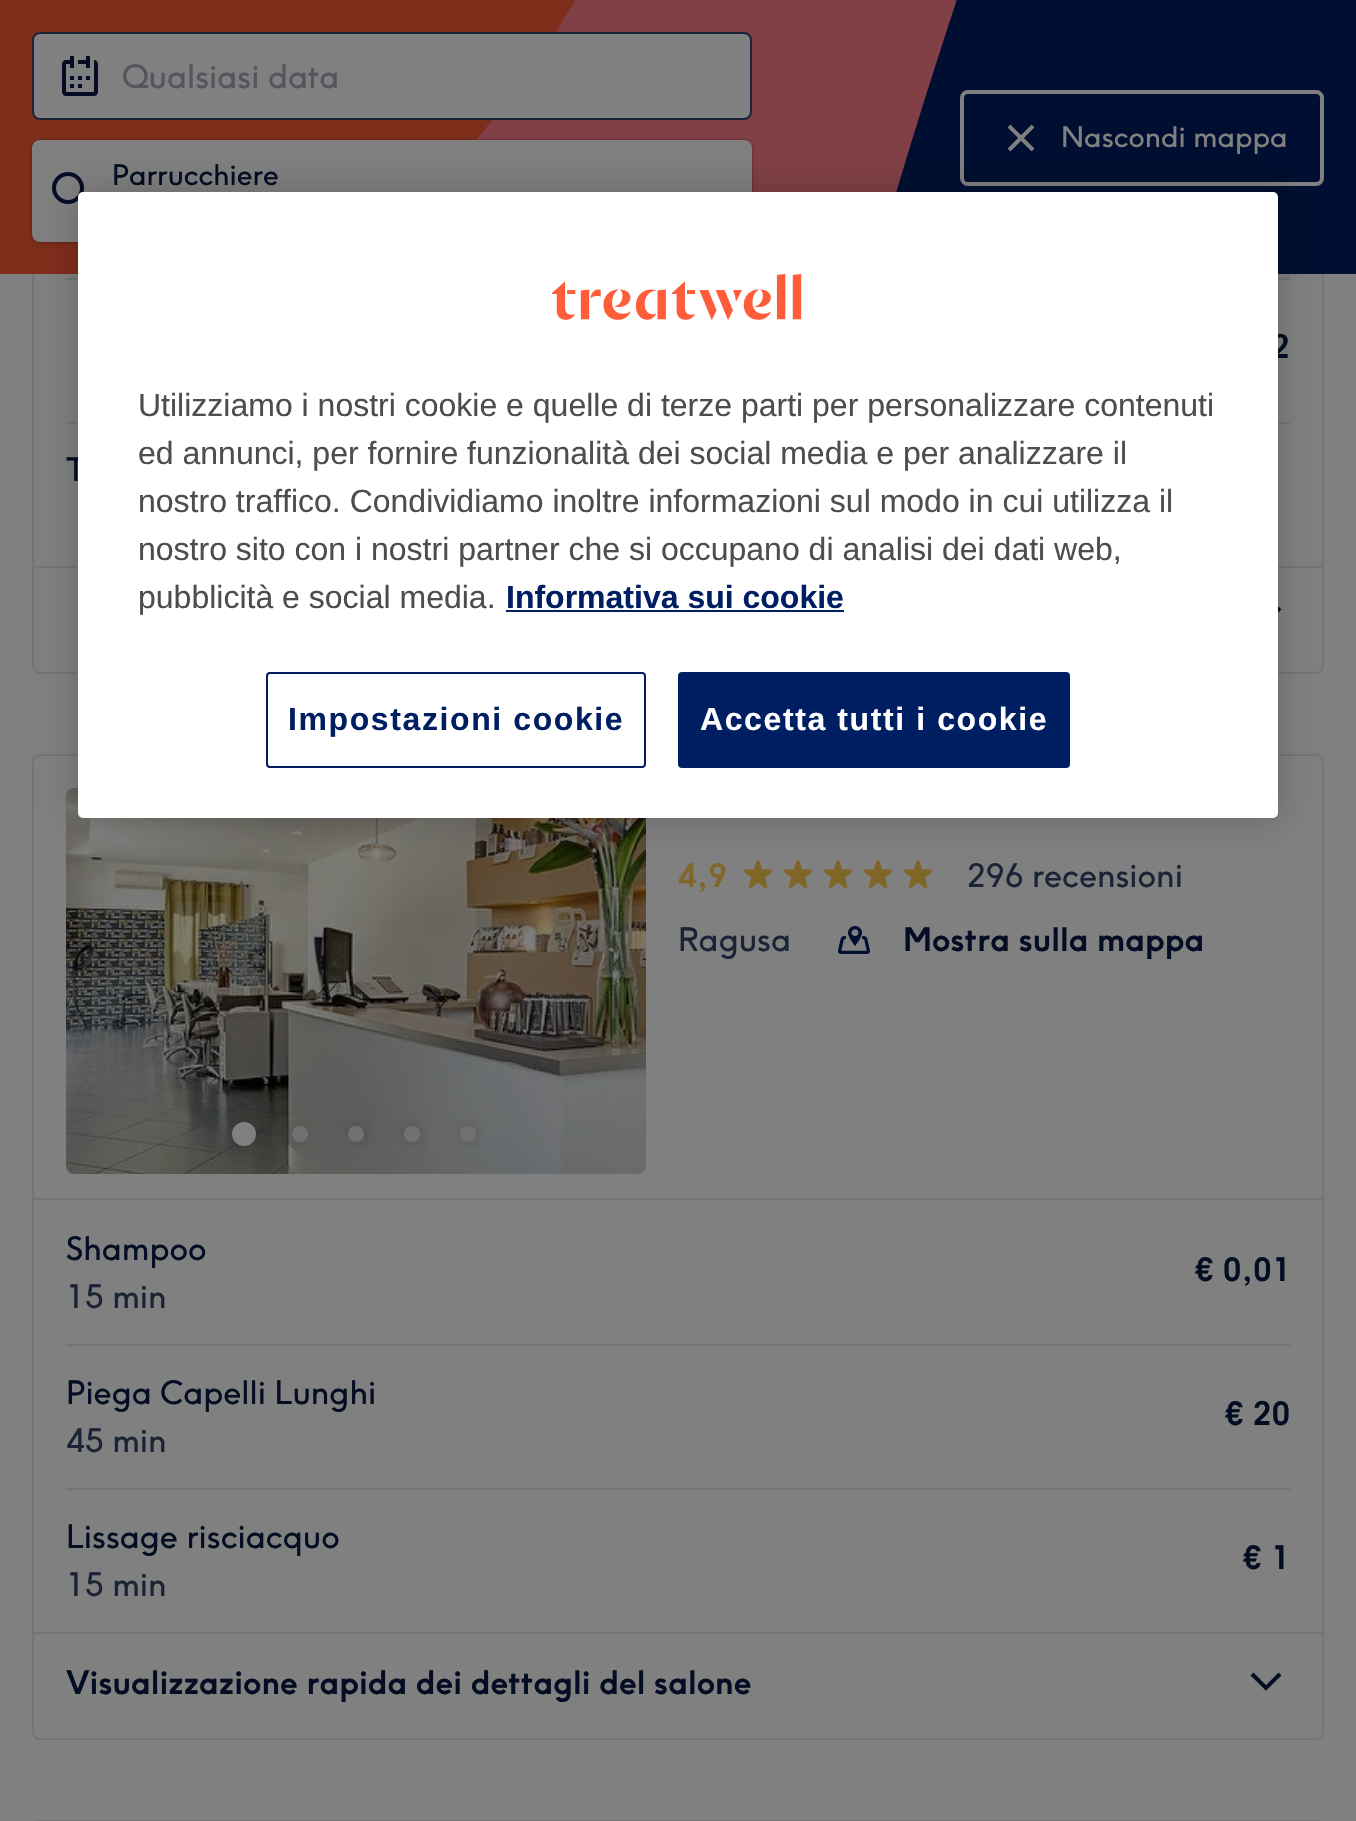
void draw(SkCanvas* c) {
SkPaint p;
p.setAntiAlias(true);
auto F=[&](const char* family, int weight, float size, bool italic = false){SkFontStyle style(weight, SkFontStyle::kNormal_Width,italic ? SkFontStyle::kItalic_Slant : SkFontStyle::kUpright_Slant);SkFont result(fontMgr->matchFamilyStyle(family, style), size);result.setSubpixel(true);return result;};
auto T=[&](const char* s, float x, float y, const SkFont& font){c->drawString(s, x, y, font, p);};
auto L=[&](const char* s, float x, float y, const SkFont& font, const SkPaint& ink, float letter, float word){std::vector<SkGlyphID> glyphs(font.countText(s, strlen(s), SkTextEncoding::kUTF8));std::vector<float> xs(glyphs.size());font.textToGlyphs(s, strlen(s), SkTextEncoding::kUTF8, glyphs);font.getXPos(glyphs, xs, x);float extra = 0;for (size_t i = 0; i < glyphs.size(); i++) {xs[i] += extra;extra += letter + word * (glyphs[i] == font.unicharToGlyph(' '));}c->drawTextBlob(SkTextBlob::MakeFromPosHGlyphs(glyphs, xs, y, font), 0, 0, ink);};
auto R=[&](float x, float y, float w, float h){c->drawRect(SkRect::MakeXYWH(x, y, w, h), p);};
auto Q=[&](float x, float y, float w, float h, float radius){c->drawRoundRect(SkRect::MakeXYWH(x, y, w, h), radius, radius, p);};
auto I=[&](const char* path, float x, float y, float w, float h){auto image = SkImages::DeferredFromEncodedData(SkData::MakeFromFileName(path));c->drawImageRect(image, SkRect::MakeXYWH(x, y, w, h), SkSamplingOptions());};
auto P=[&](const char* data, bool evenOdd = false){SkPath result = *SkParsePath::FromSVGString(data);if (evenOdd) result.setFillType(SkPathFillType::kEvenOdd);return result;};
c->clear(0xff808080);
p.setStroke(true);
p.setStrokeWidth(2);
p.setColor(0xff737477);
c->drawRoundRect(SkRect::MakeXYWH(33,-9,1290,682),7,7,p);
p.setStroke(false);
p.setColor(0xff000f31);
R(957,0,399,274);
I("1.png",0,0,957,274);
p.setColor(0xff808080);
c->drawRoundRect(SkRect::MakeXYWH(33,33,718,86),7,7,p);
p.setStroke(true);
p.setColor(0xff1b2336);
c->drawRoundRect(SkRect::MakeXYWH(33,33,718,86),7,7,p);
I("2.png",62,56,36,40);
auto f1 = F("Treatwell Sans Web",400,32);
p.setStroke(false);
p.setColor(0xff53565c);
T("Qualsiasi data",122,88,f1);
p.setColor(0x66000000);
p.setMaskFilter(SkMaskFilter::MakeBlur(kNormal_SkBlurStyle, 1));
c->drawRoundRect(SkRect::MakeXYWH(32,140,720,102),8,8,p);
p.setMaskFilter(nullptr);
p.setColor(0x26000000);
p.setMaskFilter(SkMaskFilter::MakeBlur(kNormal_SkBlurStyle, 3));
c->drawRoundRect(SkRect::MakeXYWH(32,142,720,102),8,8,p);
p.setMaskFilter(nullptr);
p.setColor(0xff808080);
Q(32,140,720,102,8);
I("3.png",52,172,32,32);
auto f2 = F("Treatwell Sans Web",400,28);
p.setColor(0xff040d24);
T("Parrucchiere",112,185,f2);
p.setStroke(true);
p.setStrokeWidth(4);
p.setColor(0xff808080);
c->drawRoundRect(SkRect::MakeXYWH(962,92,360,92),6,6,p);
I("4.png",1007,124,28,28);
p.setStroke(false);
T("Nascondi mappa",1061,147,f2);
p.setColor(0xff737477);
R(66,278,1224,2);
auto f3 = F("Treatwell Sans Web",700,32);
p.setColor(0xff040d24);
T("2",1271,358,f3);
p.setColor(0xff737477);
R(66,422,1224,2);
p.setColor(0xff040d24);
T("T",66,481,f1);
p.setColor(0xff737477);
R(34,566,1288,2);
p.setStroke(true);
p.setColor(0xff040d24);
c->drawPath(P("M1252 608l14 14l14-14"),p);
p.setStrokeWidth(2);
p.setColor(0xff737477);
c->drawRoundRect(SkRect::MakeXYWH(33,755,1290,984),7,7,p);
I("5.png",66,788,580,386);
I("6.png",226,1117,35,34);
I("7.png",288,1120,26,28);
I("8.png",342,1120,28,28);
I("9.png",398,1120,28,28);
I("10.png",454,1120,28,28);
p.setStroke(false);
p.setColor(0xff806627);
T("4,9",678,887,f3);
I("11.png",744,860,28,28);
I("11.png",784,860,28,28);
I("11.png",824,860,28,28);
I("11.png",864,860,28,28);
I("11.png",904,860,28,28);
p.setColor(0xff1b2336);
T("296 recensioni",967,887,f1);
T("Ragusa",678,951,f1);
I("12.png",838,926,32,28);
p.setColor(0xff040d24);
T("Mostra sulla mappa",903,951,f3);
p.setColor(0xff737477);
R(34,1198,1288,2);
p.setColor(0xff040d24);
T("Shampoo",66,1260,f1);
p.setColor(0xff1b2336);
T("15 min",66,1308,f1);
p.setColor(0xff040d24);
T("€ 0,01",1195,1281,f3);
p.setColor(0xff737477);
R(66,1344,1224,2);
p.setColor(0xff040d24);
T("Piega Capelli Lunghi",66,1404,f1);
p.setColor(0xff1b2336);
T("45 min",66,1452,f1);
p.setColor(0xff040d24);
T("€ 20",1225,1425,f3);
p.setColor(0xff737477);
R(66,1488,1224,2);
p.setColor(0xff040d24);
T("Lissage risciacquo",66,1548,f1);
p.setColor(0xff1b2336);
T("15 min",66,1596,f1);
p.setColor(0xff040d24);
T("€ 1",1243,1569,f3);
p.setColor(0xff737477);
R(34,1632,1288,2);
p.setColor(0xff040d24);
T("Visualizzazione rapida dei dettagli del salone",66,1694,f3);
p.setStroke(true);
p.setStrokeWidth(4);
c->drawPath(P("M1252 1674l14 14l14-14"),p);
p.setStrokeWidth(2);
p.setColor(0xff737477);
c->drawRoundRect(SkRect::MakeXYWH(33,1821,1290,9),7,7,p);
p.setStroke(false);
p.setColor(0x33000000);
p.setMaskFilter(SkMaskFilter::MakeBlur(kNormal_SkBlurStyle, 18));
c->drawRoundRect(SkRect::MakeXYWH(78,192,1200,626),5,5,p);
p.setMaskFilter(nullptr);
p.setColor(0xffffffff);
Q(78,192,1200,626,5);
I("13.png",551,274,251,46);
auto f4 = F("Liberation Sans",400,32);
p.setColor(0xff4d4d4d);
T("Utilizziamo i nostri cookie e quelle di terze parti per personalizzare contenuti",138,416,f4);
T("ed annunci, per fornire funzionalità dei social media e per analizzare il",138,464,f4);
T("nostro traffico. Condividiamo inoltre informazioni sul modo in cui utilizza il",138,512,f4);
T("nostro sito con i nostri partner che si occupano di analisi dei dati web,",138,560,f4);
T("pubblicità e social media.",138,608,f4);
auto f5 = F("Liberation Sans",700,32);
p.setColor(0xff001e62);
T("Informativa sui cookie",506,608,f5);
R(506,610,338,2);
p.setStroke(true);
c->drawRoundRect(SkRect::MakeXYWH(267,673,378,94),3,3,p);
p.setStroke(false);
L("Impostazioni cookie",288,730,f5,p,1.6,0);
c->drawRoundRect(SkRect::MakeXYWH(679,673,390,94),3,3,p);
p.setStroke(true);
c->drawRoundRect(SkRect::MakeXYWH(679,673,390,94),3,3,p);
p.setStroke(false);
p.setColor(0xffffffff);
L("Accetta tutti i cookie",700,730,f5,p,1.6,0);
}
